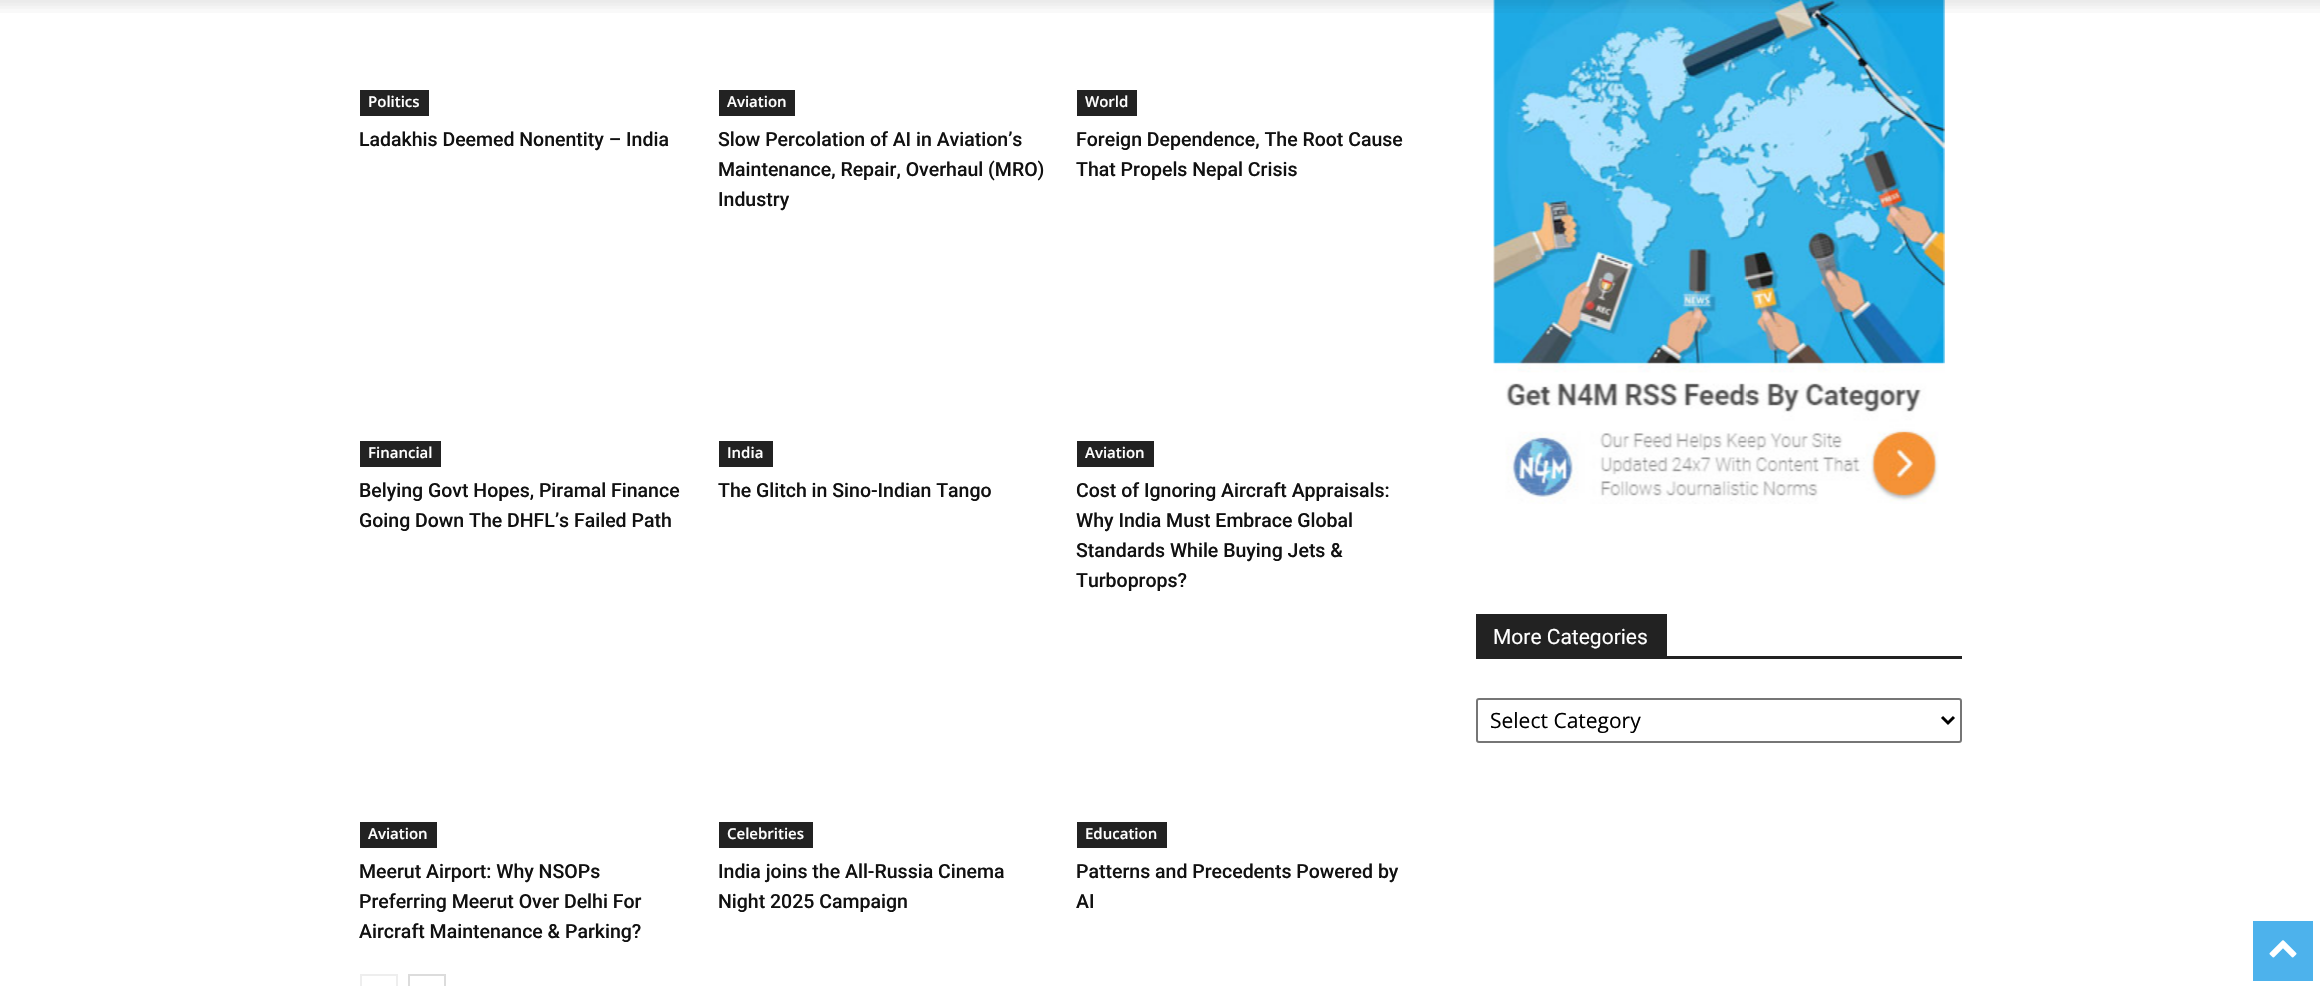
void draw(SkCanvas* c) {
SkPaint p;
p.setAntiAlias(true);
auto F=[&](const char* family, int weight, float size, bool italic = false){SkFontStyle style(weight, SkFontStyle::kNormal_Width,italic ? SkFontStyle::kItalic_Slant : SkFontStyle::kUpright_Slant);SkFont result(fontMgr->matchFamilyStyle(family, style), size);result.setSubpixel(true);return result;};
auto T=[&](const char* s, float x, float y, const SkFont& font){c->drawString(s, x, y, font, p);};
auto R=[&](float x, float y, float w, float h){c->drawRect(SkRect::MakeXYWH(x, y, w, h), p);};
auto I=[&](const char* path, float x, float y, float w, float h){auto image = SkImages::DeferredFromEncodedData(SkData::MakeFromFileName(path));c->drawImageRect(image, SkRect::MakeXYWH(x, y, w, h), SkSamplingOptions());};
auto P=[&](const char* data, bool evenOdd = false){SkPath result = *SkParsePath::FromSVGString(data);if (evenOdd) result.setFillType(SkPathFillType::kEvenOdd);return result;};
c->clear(0xffffffff);
I("2.png",1493,0,452,504);
I("1.png",0,0,2320,13);
p.setColor(0xff222222);
R(360,90,69,26);
auto f1 = F("Open Sans",600,15);
p.setColor(0xffffffff);
T("Politics",368,107,f1);
auto f2 = F("Roboto",500,19.5);
p.setColor(0xff111111);
T("Ladakhis Deemed Nonentity – India",359,146,f2);
p.setColor(0xff222222);
R(719,90,76,26);
p.setColor(0xffffffff);
T("Aviation",727,107,f1);
p.setColor(0xff111111);
T("Slow Percolation of AI in Aviation’s",718,146,f2);
T("Maintenance, Repair, Overhaul (MRO)",718,176,f2);
T("Industry",718,206,f2);
p.setColor(0xff222222);
R(1077,90,60,26);
p.setColor(0xffffffff);
T("World",1085,107,f1);
p.setColor(0xff111111);
T("Foreign Dependence, The Root Cause",1076,146,f2);
T("That Propels Nepal Crisis",1076,176,f2);
p.setColor(0xff222222);
R(360,441,81,26);
p.setColor(0xffffffff);
T("Financial",368,458,f1);
p.setColor(0xff111111);
T("Belying Govt Hopes, Piramal Finance",359,497,f2);
T("Going Down The DHFL’s Failed Path",359,527,f2);
p.setColor(0xff222222);
R(719,441,54,26);
p.setColor(0xffffffff);
T("India",727,458,f1);
p.setColor(0xff111111);
T("The Glitch in Sino-Indian Tango",718,497,f2);
p.setColor(0xff222222);
R(1077,441,77,26);
p.setColor(0xffffffff);
T("Aviation",1085,458,f1);
p.setColor(0xff111111);
T("Cost of Ignoring Aircraft Appraisals:",1076,497,f2);
T("Why India Must Embrace Global",1076,527,f2);
T("Standards While Buying Jets &",1076,557,f2);
T("Turboprops?",1076,587,f2);
p.setColor(0xff222222);
R(360,822,77,26);
p.setColor(0xffffffff);
T("Aviation",368,839,f1);
p.setColor(0xff111111);
T("Meerut Airport: Why NSOPs",359,878,f2);
T("Preferring Meerut Over Delhi For",359,908,f2);
T("Aircraft Maintenance & Parking?",359,938,f2);
p.setColor(0xff222222);
R(719,822,94,26);
p.setColor(0xffffffff);
T("Celebrities",727,839,f1);
p.setColor(0xff111111);
T("India joins the All-Russia Cinema",718,878,f2);
T("Night 2025 Campaign",718,908,f2);
p.setColor(0xff222222);
R(1077,822,90,26);
p.setColor(0xffffffff);
T("Education",1085,839,f1);
p.setColor(0xff111111);
T("Patterns and Precedents Powered by",1076,878,f2);
T("AI",1076,908,f2);
p.setStroke(true);
p.setStrokeWidth(2);
p.setColor(0xffeeeeee);
c->drawRect(SkRect::MakeXYWH(361,975,36,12),p);
p.setColor(0xffdcdcdc);
c->drawRect(SkRect::MakeXYWH(409,975,36,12),p);
p.setStroke(false);
p.setColor(0xff222222);
R(1476,656,486,3);
R(1476,614,191,42);
auto f3 = F("Roboto",400,21);
p.setColor(0xffffffff);
T("More Categories",1493,644,f3);
p.setStroke(true);
p.setColor(0xff767676);
c->drawRoundRect(SkRect::MakeXYWH(1477,699,484,43),2,2,p);
p.setStrokeWidth(3);
p.setColor(0xff000000);
c->drawPath(P("M1942 717l6 6l6-6"),p);
auto f4 = F("Open Sans",400,21);
p.setStroke(false);
T("Select Category",1490,728,f4);
p.setColor(0xff4db2ec);
R(2253,921,60,60);
I("3.png",2269,940,28,18);
}
